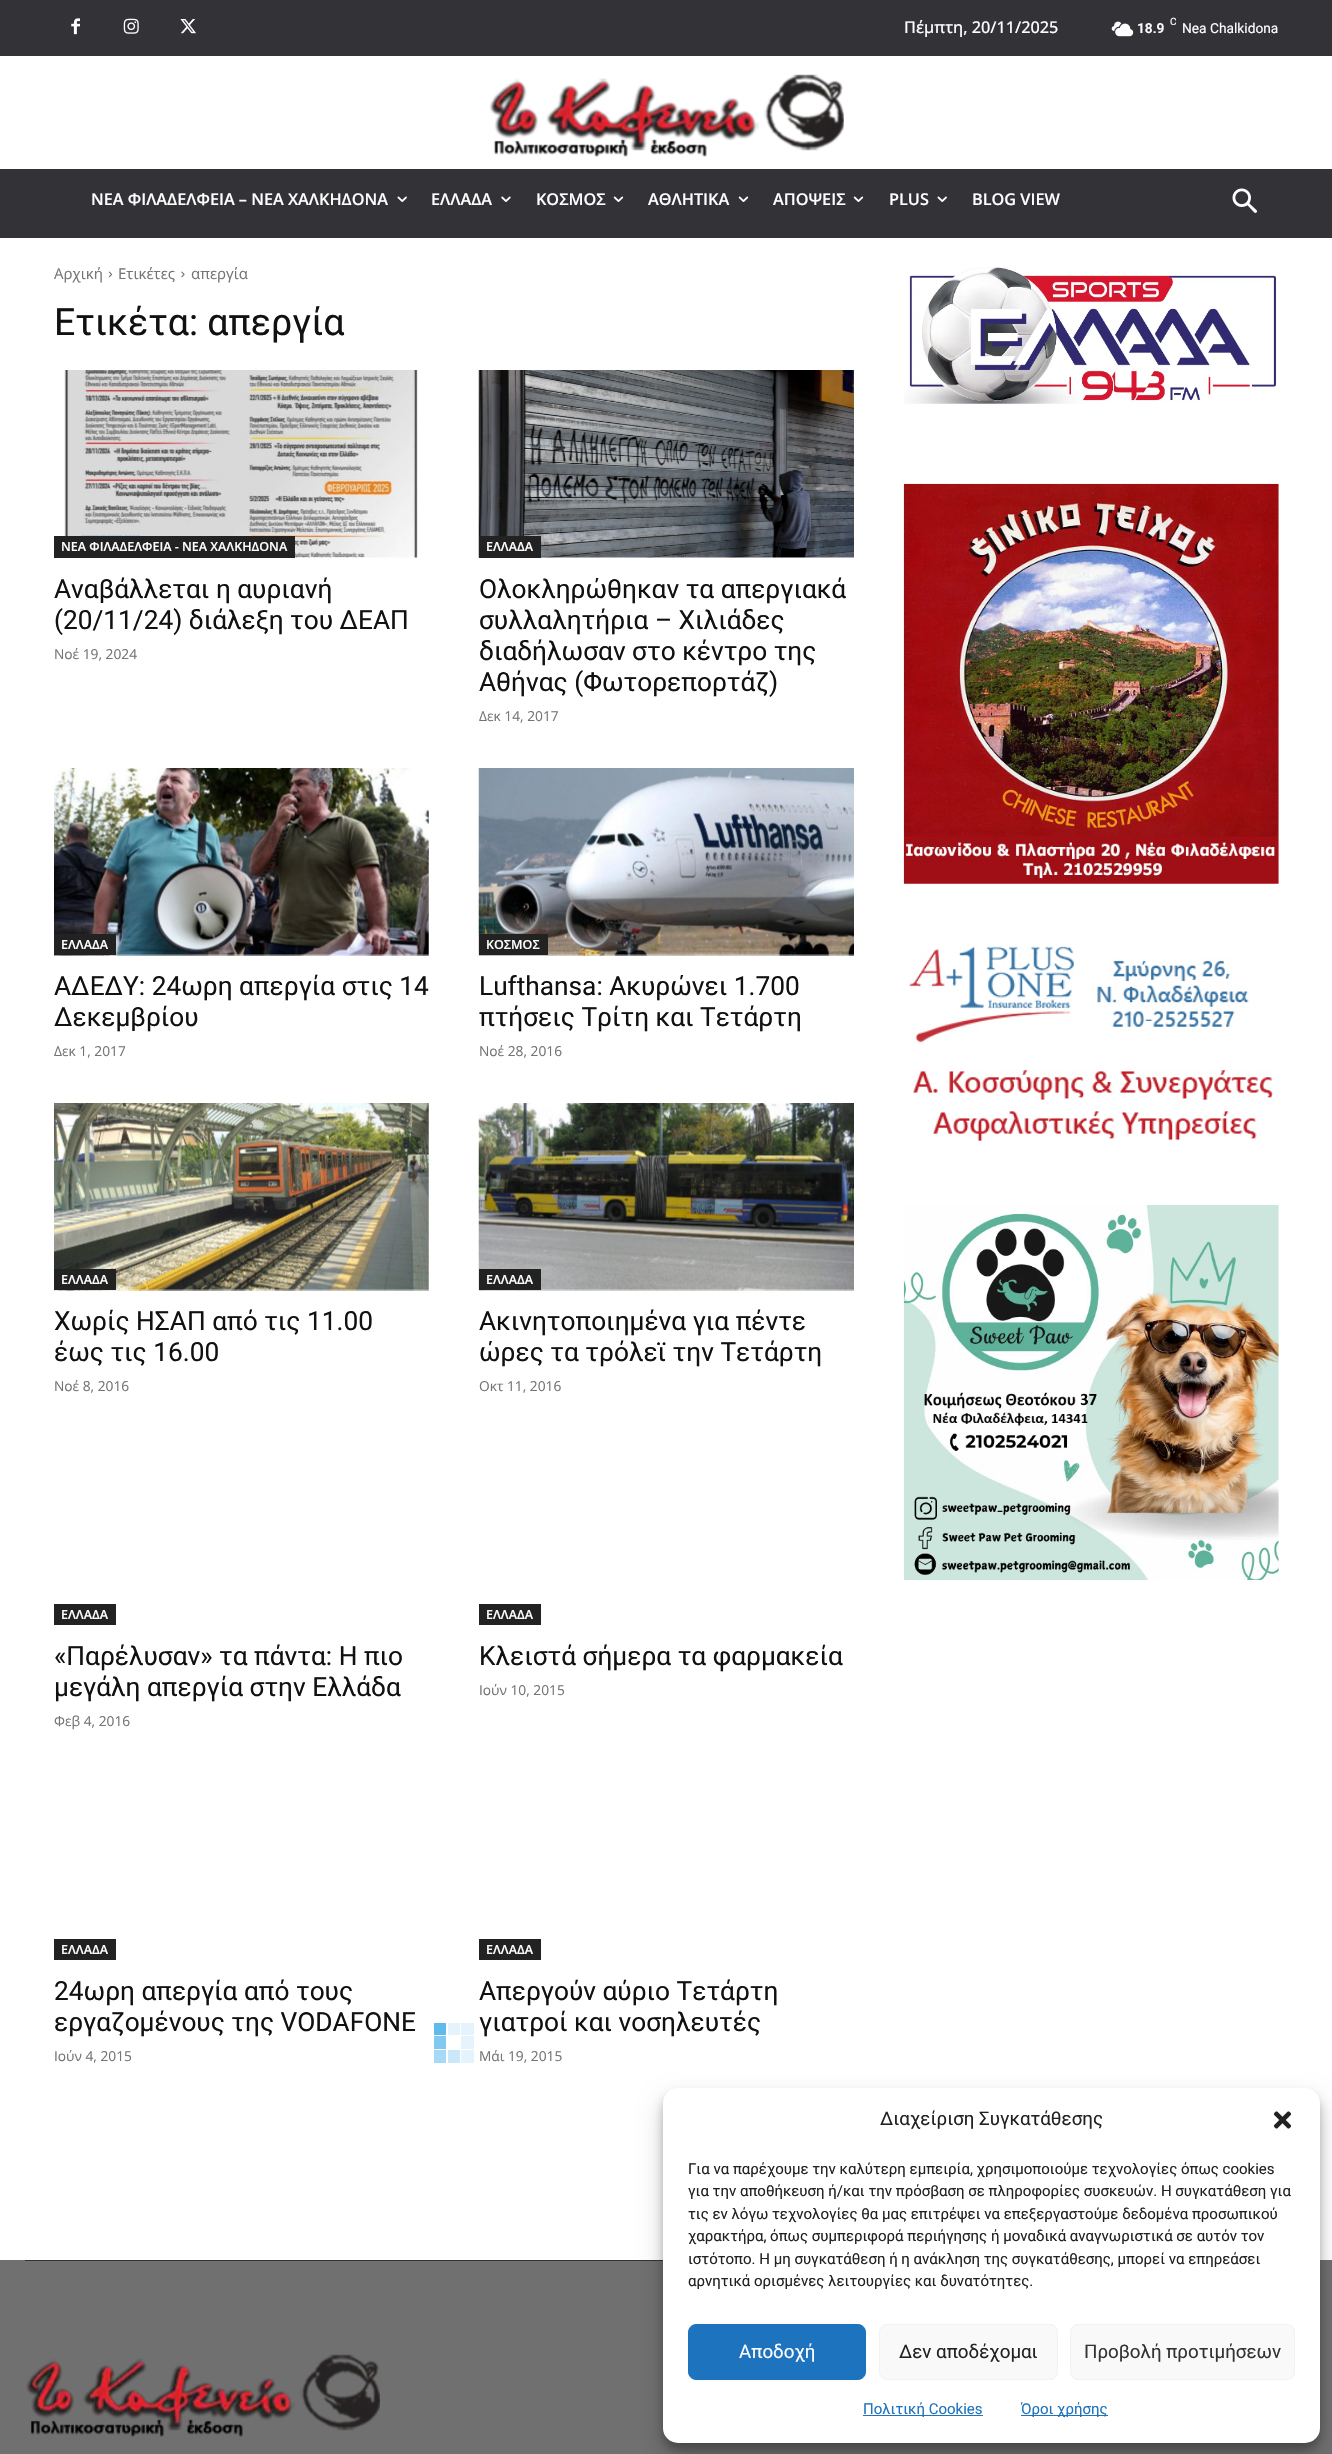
void draw(SkCanvas* c) {
SkPaint p;
p.setAntiAlias(true);
auto F=[&](const char* family, int weight, float size, bool italic = false){SkFontStyle style(weight, SkFontStyle::kNormal_Width,italic ? SkFontStyle::kItalic_Slant : SkFontStyle::kUpright_Slant);SkFont result(fontMgr->matchFamilyStyle(family, style), size);result.setSubpixel(true);return result;};
auto T=[&](const char* s, float x, float y, const SkFont& font){c->drawString(s, x, y, font, p);};
auto R=[&](float x, float y, float w, float h){c->drawRect(SkRect::MakeXYWH(x, y, w, h), p);};
auto Q=[&](float x, float y, float w, float h, float radius){c->drawRoundRect(SkRect::MakeXYWH(x, y, w, h), radius, radius, p);};
auto I=[&](const char* path, float x, float y, float w, float h){auto image = SkImages::DeferredFromEncodedData(SkData::MakeFromFileName(path));c->drawImageRect(image, SkRect::MakeXYWH(x, y, w, h), SkSamplingOptions());};
c->clear(0xffffffff);
p.setColor(0xff333237);
R(0,0,1332,56);
I("1.png",71,18,9,17);
I("2.png",123,18,16,16);
I("3.png",180,19,16,15);
auto f1 = F("Open Sans",500,16.25);
p.setColor(0xffffffff);
T("Πέμπτη, 20/11/2025",904,33,f1);
I("4.png",1111,21,23,16);
auto f2 = F("Roboto",400,10);
T("C",1170,25,f2);
auto f3 = F("Roboto",600,13.75);
T("18.9",1137,33,f3);
auto f4 = F("Roboto",400,13.75);
T("Nea Chalkidona",1182,33,f4);
I("5.png",489,74,355,83);
p.setColor(0xff333237);
R(0,169,1332,69);
auto f5 = F("Open Sans",600,16.25);
p.setColor(0xffffffff);
T("ΝΕΑ ΦΙΛΑΔΕΛΦΕΙΑ – ΝΕΑ ΧΑΛΚΗΔΟΝΑ",91,205,f5);
I("6.png",397,196,10,6);
T("ΕΛΛΑΔΑ",431,205,f5);
I("7.png",501,196,10,6);
T("ΚΟΣΜΟΣ",536,205,f5);
I("8.png",613,196,11,6);
T("ΑΘΛΗΤΙΚΑ",648,205,f5);
I("8.png",738,196,11,6);
T("ΑΠΟΨΕΙΣ",773,205,f5);
I("8.png",853,196,11,6);
T("PLUS",889,205,f5);
I("6.png",937,196,10,6);
T("BLOG VIEW",972,205,f5);
I("9.png",1232,188,25,25);
auto f6 = F("Open Sans",400,15);
p.setColor(0xff747474);
T("Αρχική",54,279,f6);
I("10.png",108,271,5,7);
T("Ετικέτες",118,279,f6);
I("11.png",181,271,4,7);
T("απεργία",191,279,f6);
auto f7 = F("Roboto",400,37.5);
p.setColor(0xff111111);
T("Ετικέτα: απεργία",54,335,f7);
I("12.png",64,370,354,188);
p.setColor(0xff222222);
R(54,536,241,22);
auto f8 = F("Open Sans",600,12.5);
p.setColor(0xffffffff);
T("ΝΕΑ ΦΙΛΑΔΕΛΦΕΙΑ - ΝΕΑ ΧΑΛΚΗΔΟΝΑ",61,551,f8);
auto f9 = F("Roboto",400,26.25);
p.setColor(0xff111111);
T("Αναβάλλεται η αυριανή",54,598,f9);
T("(20/11/24) διάλεξη του ΔΕΑΠ",54,629,f9);
auto f10 = F("Open Sans",400,13.75);
p.setColor(0xff747474);
T("Νοέ 19, 2024",54,659,f10);
I("13.png",478,370,376,188);
p.setColor(0xff222222);
R(479,536,62,22);
p.setColor(0xffffffff);
T("ΕΛΛΑΔΑ",486,551,f8);
p.setColor(0xff111111);
T("Ολοκληρώθηκαν τα απεργιακά",479,598,f9);
T("συλλαλητήρια – Χιλιάδες",479,629,f9);
T("διαδήλωσαν στο κέντρο της",479,660,f9);
T("Αθήνας (Φωτορεπορτάζ)",479,691,f9);
p.setColor(0xff747474);
T("Δεκ 14, 2017",479,721,f10);
I("14.png",54,768,375,188);
p.setColor(0xff222222);
R(54,934,62,21);
p.setColor(0xffffffff);
T("ΕΛΛΑΔΑ",61,949,f8);
p.setColor(0xff111111);
T("ΑΔΕΔΥ: 24ωρη απεργία στις 14",54,995,f9);
T("Δεκεμβρίου",54,1026,f9);
p.setColor(0xff747474);
T("Δεκ 1, 2017",54,1056,f10);
I("15.png",478,768,376,188);
p.setColor(0xff222222);
R(479,934,69,21);
p.setColor(0xffffffff);
T("ΚΟΣΜΟΣ",486,949,f8);
p.setColor(0xff111111);
T("Lufthansa: Ακυρώνει 1.700",479,995,f9);
T("πτήσεις Τρίτη και Τετάρτη",479,1026,f9);
p.setColor(0xff747474);
T("Νοέ 28, 2016",479,1056,f10);
I("16.png",54,1103,375,188);
p.setColor(0xff222222);
R(54,1269,62,21);
p.setColor(0xffffffff);
T("ΕΛΛΑΔΑ",61,1284,f8);
p.setColor(0xff111111);
T("Χωρίς ΗΣΑΠ από τις 11.00",54,1330,f9);
T("έως τις 16.00",54,1361,f9);
p.setColor(0xff747474);
T("Νοέ 8, 2016",54,1391,f10);
I("17.png",478,1103,376,188);
p.setColor(0xff222222);
R(479,1269,62,21);
p.setColor(0xffffffff);
T("ΕΛΛΑΔΑ",486,1284,f8);
p.setColor(0xff111111);
T("Ακινητοποιημένα για πέντε",479,1330,f9);
T("ώρες τα τρόλεϊ την Τετάρτη",479,1361,f9);
p.setColor(0xff747474);
T("Οκτ 11, 2016",479,1391,f10);
p.setColor(0xff222222);
R(54,1604,62,21);
p.setColor(0xffffffff);
T("ΕΛΛΑΔΑ",61,1619,f8);
p.setColor(0xff111111);
T("«Παρέλυσαν» τα πάντα: Η πιο",54,1665,f9);
T("μεγάλη απεργία στην Ελλάδα",54,1696,f9);
p.setColor(0xff747474);
T("Φεβ 4, 2016",54,1726,f10);
p.setColor(0xff222222);
R(479,1604,62,21);
p.setColor(0xffffffff);
T("ΕΛΛΑΔΑ",486,1619,f8);
p.setColor(0xff111111);
T("Κλειστά σήμερα τα φαρμακεία",479,1665,f9);
p.setColor(0xff747474);
T("Ιούν 10, 2015",479,1695,f10);
p.setColor(0xff222222);
R(54,1939,62,21);
p.setColor(0xffffffff);
T("ΕΛΛΑΔΑ",61,1954,f8);
p.setColor(0xff111111);
T("24ωρη απεργία από τους",54,2000,f9);
T("εργαζομένους της VODAFONE",54,2031,f9);
p.setColor(0xff747474);
T("Ιούν 4, 2015",54,2061,f10);
p.setColor(0xff222222);
R(479,1939,62,21);
p.setColor(0xffffffff);
T("ΕΛΛΑΔΑ",486,1954,f8);
p.setColor(0xff111111);
T("Απεργούν αύριο Τετάρτη",479,2000,f9);
T("γιατροί και νοσηλευτές",479,2031,f9);
p.setColor(0xff747474);
T("Μάι 19, 2015",479,2061,f10);
p.setColor(0xff5fbaee);
R(434,2023,12,12);
p.setColor(0xffe4f3fc);
R(448,2023,12,12);
R(461,2023,13,12);
p.setColor(0xff82c9f2);
R(434,2036,12,13);
p.setColor(0xffe4f3fc);
R(461,2036,13,13);
p.setColor(0xffa6d9f6);
R(434,2050,12,13);
p.setColor(0xffcae8f9);
R(448,2050,12,13);
p.setColor(0xffe4f3fc);
R(461,2050,13,13);
I("18.png",904,267,373,137);
I("19.png",903,483,376,401);
I("20.png",909,946,364,195);
I("21.png",903,1205,376,375);
p.setColor(0xff707070);
R(0,2260,1332,194);
p.setColor(0xff333237);
R(25,2260,638,1);
I("22.png",26,2354,354,83);
p.setColor(0x3b000000);
p.setMaskFilter(SkMaskFilter::MakeBlur(kNormal_SkBlurStyle, 4));
c->drawRoundRect(SkRect::MakeXYWH(663,2095,657,355),15,15,p);
p.setMaskFilter(nullptr);
p.setColor(0x30000000);
p.setMaskFilter(SkMaskFilter::MakeBlur(kNormal_SkBlurStyle, 12.5));
c->drawRoundRect(SkRect::MakeXYWH(663,2100,657,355),15,15,p);
p.setMaskFilter(nullptr);
p.setColor(0xffffffff);
Q(663,2088,657,355,15);
auto f11 = F("Roboto",400,18.75);
p.setColor(0xff222222);
T("Διαχείριση Συγκατάθεσης",880,2125,f11);
I("23.png",1273,2111,19,18);
auto f12 = F("Roboto",400,15);
T("Για να παρέχουμε την καλύτερη εμπειρία, χρησιμοποιούμε τεχνολογίες όπως cookies",688,2174,f12);
T("για την αποθήκευση ή/και την πρόσβαση σε πληροφορίες συσκευών. Η συγκατάθεση για",688,2196,f12);
T("τις εν λόγω τεχνολογίες θα μας επιτρέψει να επεξεργαστούμε δεδομένα προσωπικού",688,2219,f12);
T("χαρακτήρα, όπως συμπεριφορά περιήγησης ή μοναδικά αναγνωριστικά σε αυτόν τον",688,2241,f12);
T("ιστότοπο. Η μη συγκατάθεση ή η ανάκληση της συγκατάθεσης, μπορεί να επηρεάσει",688,2264,f12);
T("αρνητικά ορισμένες λειτουργίες και δυνατότητες.",688,2286,f12);
p.setColor(0xff1e73be);
c->drawRoundRect(SkRect::MakeXYWH(688.5,2324.5,177,55),7.5,7.5,p);
p.setStroke(true);
p.setStrokeWidth(1);
c->drawRoundRect(SkRect::MakeXYWH(688.5,2324.5,177,55),7.5,7.5,p);
p.setStroke(false);
p.setColor(0xffffffff);
T("Αποδοχή",739,2358,f11);
p.setColor(0xfff9f9f9);
c->drawRoundRect(SkRect::MakeXYWH(879.5,2324.5,178,55),7.5,7.5,p);
p.setStroke(true);
p.setColor(0xfff2f2f2);
c->drawRoundRect(SkRect::MakeXYWH(879.5,2324.5,178,55),7.5,7.5,p);
p.setStroke(false);
p.setColor(0xff222222);
T("Δεν αποδέχομαι",899,2358,f11);
p.setColor(0xfff9f9f9);
c->drawRoundRect(SkRect::MakeXYWH(1070.5,2324.5,224,55),7.5,7.5,p);
p.setStroke(true);
p.setColor(0xfff2f2f2);
c->drawRoundRect(SkRect::MakeXYWH(1070.5,2324.5,224,55),7.5,7.5,p);
p.setStroke(false);
p.setColor(0xff333333);
T("Προβολή προτιμήσεων",1084,2358,f11);
p.setColor(0xff1e73be);
R(863,2415,120,1);
T("Πολιτική Cookies",863,2414,f12);
R(1021,2415,87,1);
T("Όροι χρήσης",1021,2414,f12);
}
